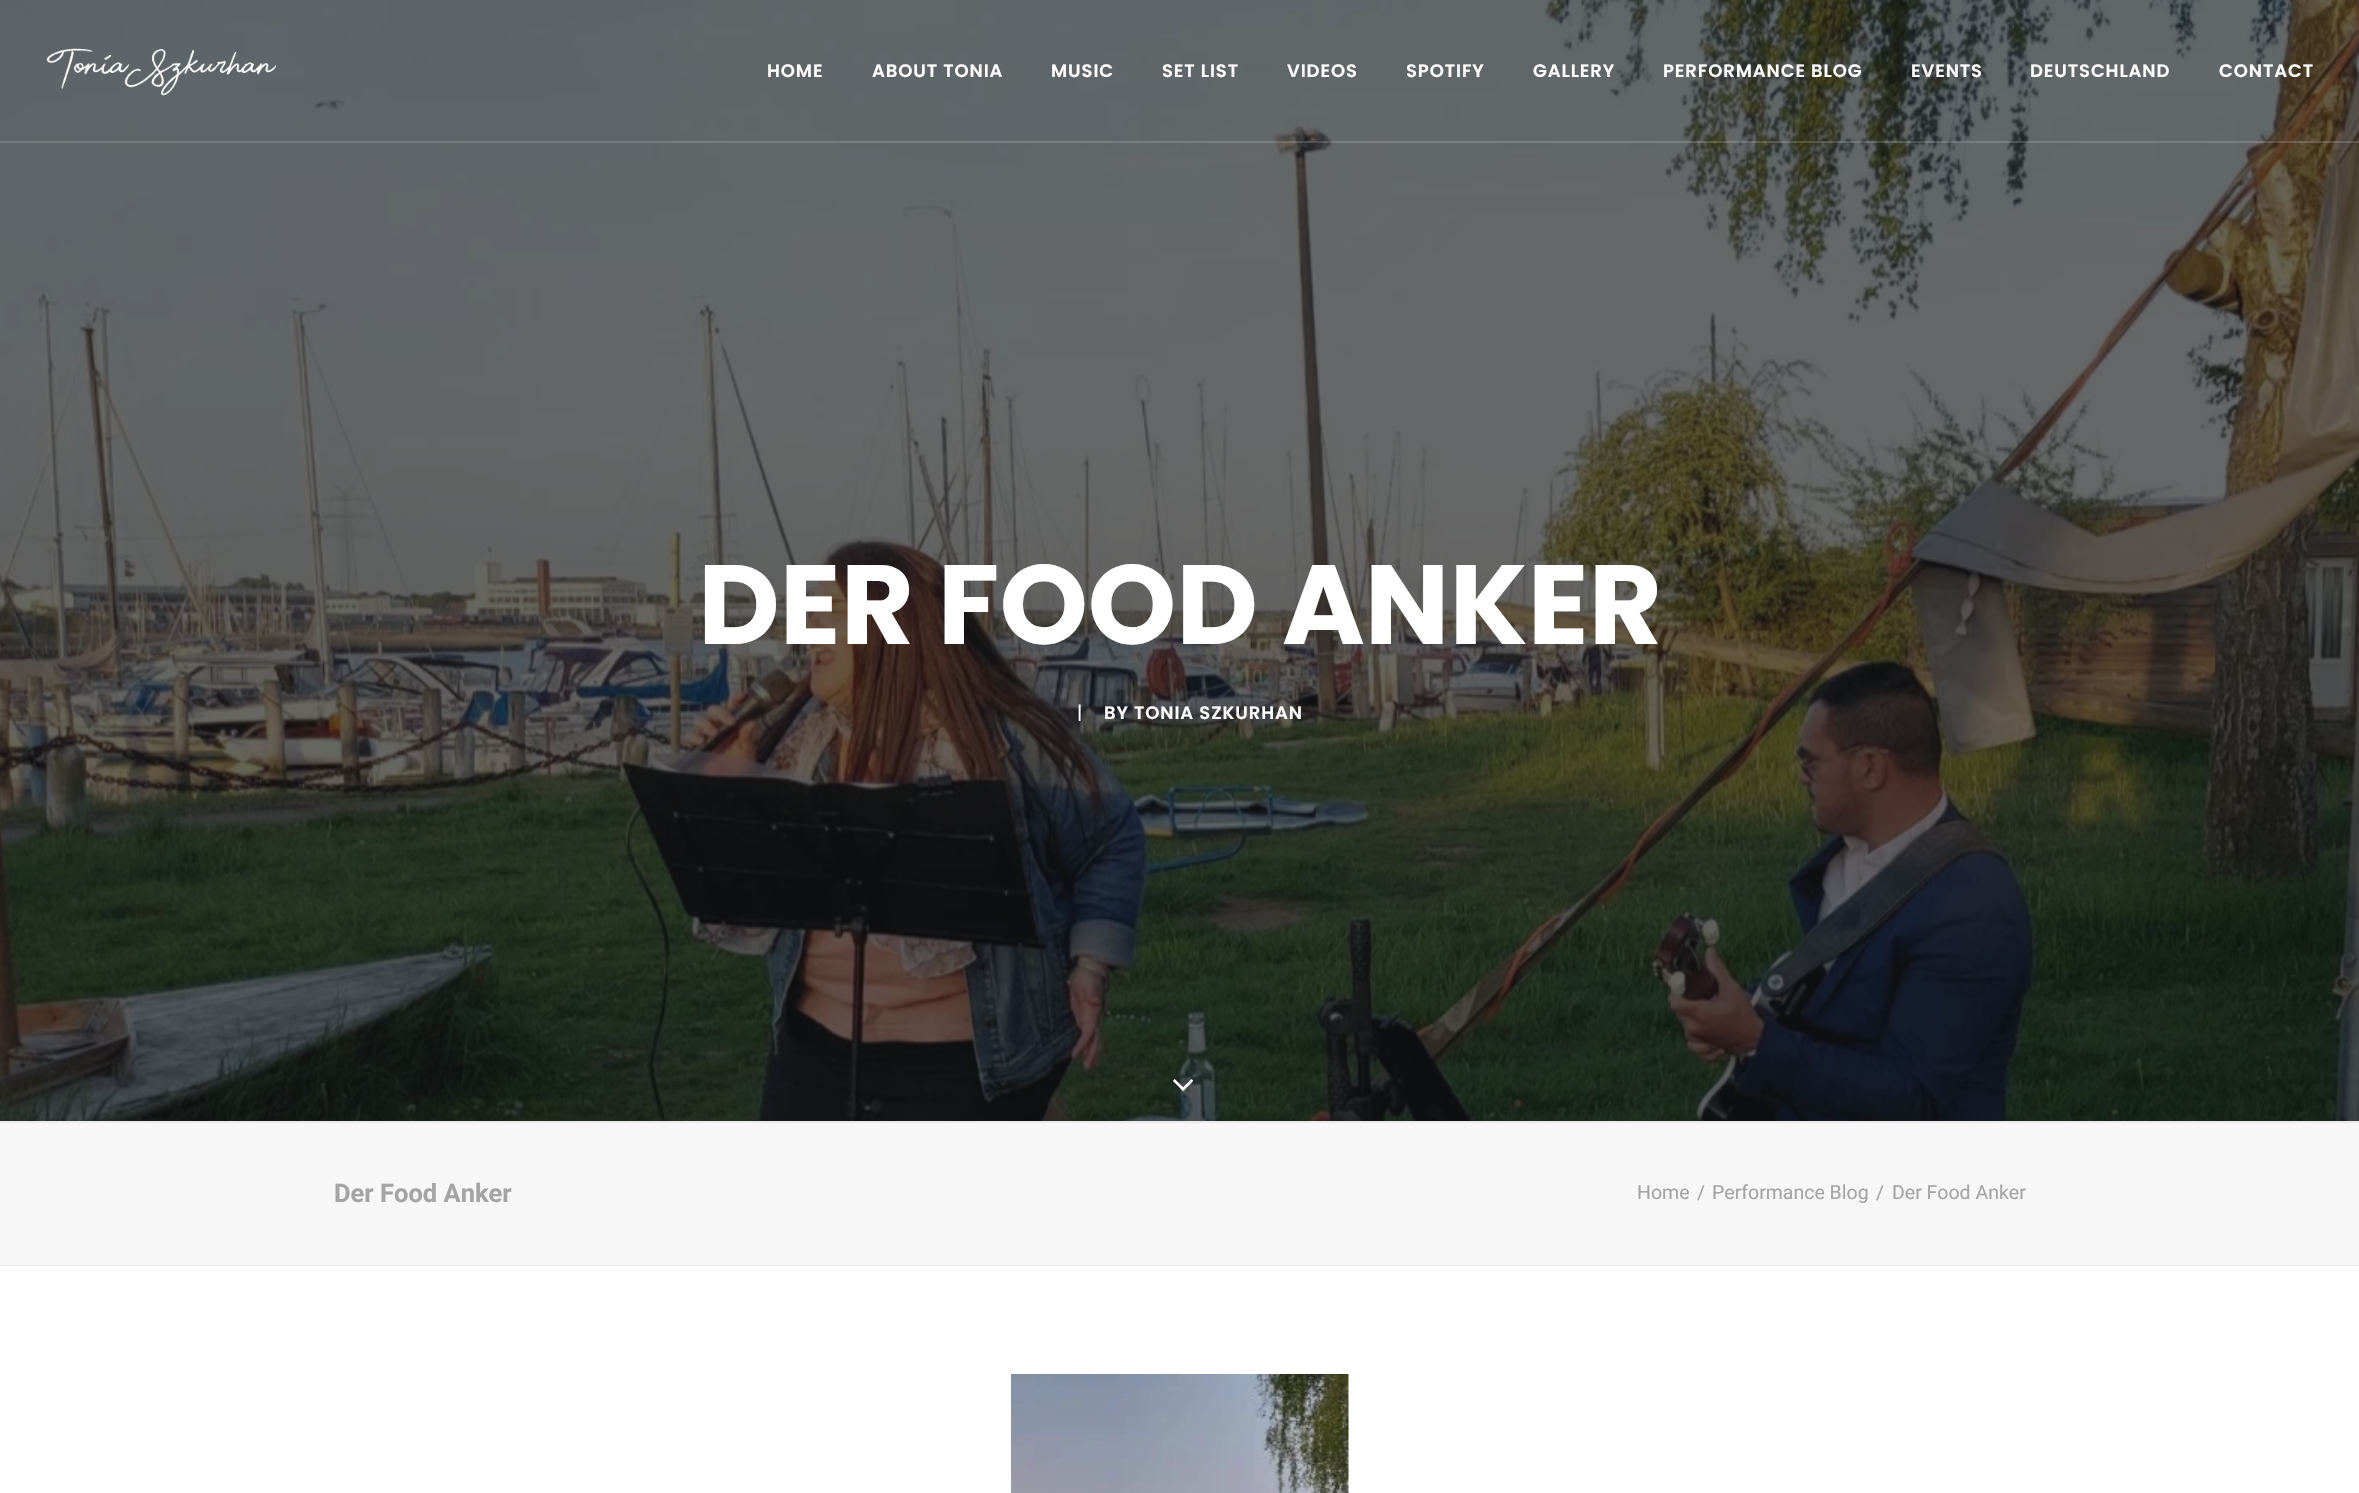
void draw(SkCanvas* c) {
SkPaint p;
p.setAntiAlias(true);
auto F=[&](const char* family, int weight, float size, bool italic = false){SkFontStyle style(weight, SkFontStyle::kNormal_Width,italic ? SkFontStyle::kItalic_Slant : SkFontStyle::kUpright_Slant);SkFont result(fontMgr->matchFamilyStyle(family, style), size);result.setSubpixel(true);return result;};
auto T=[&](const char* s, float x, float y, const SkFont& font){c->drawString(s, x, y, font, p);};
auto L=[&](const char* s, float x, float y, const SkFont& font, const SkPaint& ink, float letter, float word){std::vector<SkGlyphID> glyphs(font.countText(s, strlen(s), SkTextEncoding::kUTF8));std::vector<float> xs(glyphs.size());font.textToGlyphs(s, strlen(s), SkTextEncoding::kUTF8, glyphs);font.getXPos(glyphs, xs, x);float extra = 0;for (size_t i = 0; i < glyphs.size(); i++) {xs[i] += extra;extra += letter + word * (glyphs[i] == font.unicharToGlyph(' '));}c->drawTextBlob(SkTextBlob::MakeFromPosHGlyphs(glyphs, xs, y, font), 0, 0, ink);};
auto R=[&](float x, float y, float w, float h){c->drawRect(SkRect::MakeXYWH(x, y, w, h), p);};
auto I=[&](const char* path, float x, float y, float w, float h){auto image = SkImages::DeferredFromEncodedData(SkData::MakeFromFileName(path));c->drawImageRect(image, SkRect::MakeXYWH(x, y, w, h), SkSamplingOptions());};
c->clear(0xffffffff);
I("2.png",0,0,2359,1121);
p.setColor(0x26ffffff);
R(0,141,2359,2);
I("1.png",46,48,230,48);
auto f1 = F("Poppins",600,18);
p.setColor(0xffffffff);
L("HOME",767,77,f1,p,.9,0);
L("ABOUT TONIA",872,77,f1,p,.9,0);
L("MUSIC",1051,77,f1,p,.9,0);
L("SET LIST",1162,77,f1,p,.9,0);
L("VIDEOS",1287,77,f1,p,.9,0);
L("SPOTIFY",1406,77,f1,p,.9,0);
L("GALLERY",1533,77,f1,p,.9,0);
L("PERFORMANCE BLOG",1663,77,f1,p,.9,0);
L("EVENTS",1911,77,f1,p,.9,0);
L("DEUTSCHLAND",2030,77,f1,p,.9,0);
L("CONTACT",2219,77,f1,p,.9,0);
auto f2 = F("Poppins",700,112.5);
T("DER FOOD ANKER",698,644,f2);
auto f3 = F("Poppins",400,18);
L("|",1077,719,f3,p,.9,0);
L("BY TONIA SZKURHAN",1104,719,f1,p,.9,0);
I("3.png",1173,1079,21,12);
p.setColor(0xfff7f7f7);
R(0,1123,2359,142);
p.setColor(0xffeaeaea);
R(0,1121,2359,2);
R(0,1265,2359,1);
auto f4 = F("Roboto",700,25.5);
p.setColor(0xffa4a4a4);
T("Der Food Anker",334,1202,f4);
auto f5 = F("Roboto",400,19.5);
T("Home",1637,1199,f5);
T("/",1697,1199,f5);
T("Performance Blog",1712,1199,f5);
T("/",1876,1199,f5);
T("Der Food Anker",1892,1199,f5);
I("4.png",1011,1374,338,119);
}
